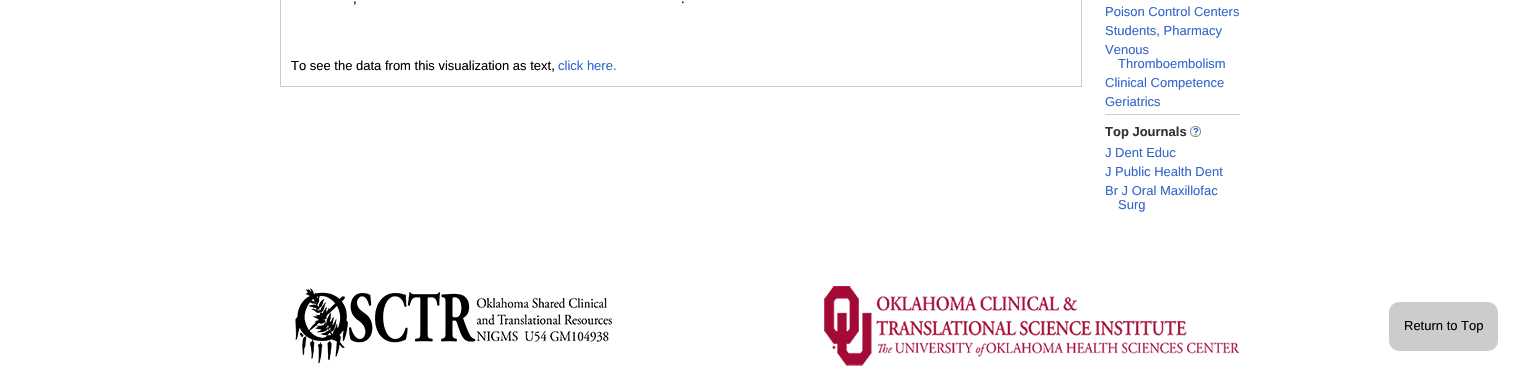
void draw(SkCanvas* c) {
SkPaint p;
p.setAntiAlias(true);
auto F=[&](const char* family, int weight, float size, bool italic = false){SkFontStyle style(weight, SkFontStyle::kNormal_Width,italic ? SkFontStyle::kItalic_Slant : SkFontStyle::kUpright_Slant);SkFont result(fontMgr->matchFamilyStyle(family, style), size);result.setSubpixel(true);return result;};
auto T=[&](const char* s, float x, float y, const SkFont& font){c->drawString(s, x, y, font, p);};
auto R=[&](float x, float y, float w, float h){c->drawRect(SkRect::MakeXYWH(x, y, w, h), p);};
auto Q=[&](float x, float y, float w, float h, float radius){c->drawRoundRect(SkRect::MakeXYWH(x, y, w, h), radius, radius, p);};
auto I=[&](const char* path, float x, float y, float w, float h){auto image = SkImages::DeferredFromEncodedData(SkData::MakeFromFileName(path));c->drawImageRect(image, SkRect::MakeXYWH(x, y, w, h), SkSamplingOptions());};
c->clear(0xffffffff);
p.setStroke(true);
p.setStrokeWidth(1);
p.setColor(0xffcccccc);
c->drawRect(SkRect::MakeXYWH(280.5,-.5,801,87),p);
auto f1 = F("Liberation Sans",400,13);
p.setStroke(false);
p.setColor(0xff000000);
T(",",353,3,f1);
T(".",681,3,f1);
T("To see the data from this visualization as text,",291,70,f1);
p.setColor(0xff3366cc);
T("click here.",558,70,f1);
T("Poison Control Centers",1105,16,f1);
T("Students, Pharmacy",1105,35,f1);
T("Venous",1105,54,f1);
T("Thromboembolism",1118,68,f1);
T("Clinical Competence",1105,87,f1);
T("Geriatrics",1105,106,f1);
p.setColor(0xffcccccc);
R(1105,114,135,1);
auto f2 = F("Liberation Sans",700,13);
p.setColor(0xff333333);
T("Top Journals",1105,136,f2);
I("1.png",1190,126,11,11);
p.setColor(0xff3366cc);
T("J Dent Educ",1105,157,f1);
T("J Public Health Dent",1105,176,f1);
T("Br J Oral Maxillofac",1105,195,f1);
T("Surg",1118,209,f1);
p.setColor(0xffcccccc);
Q(1389,302,109,49,10);
p.setColor(0xff000000);
T("Return to Top",1404,330,f1);
I("2.png",295,286,944,80);
}
